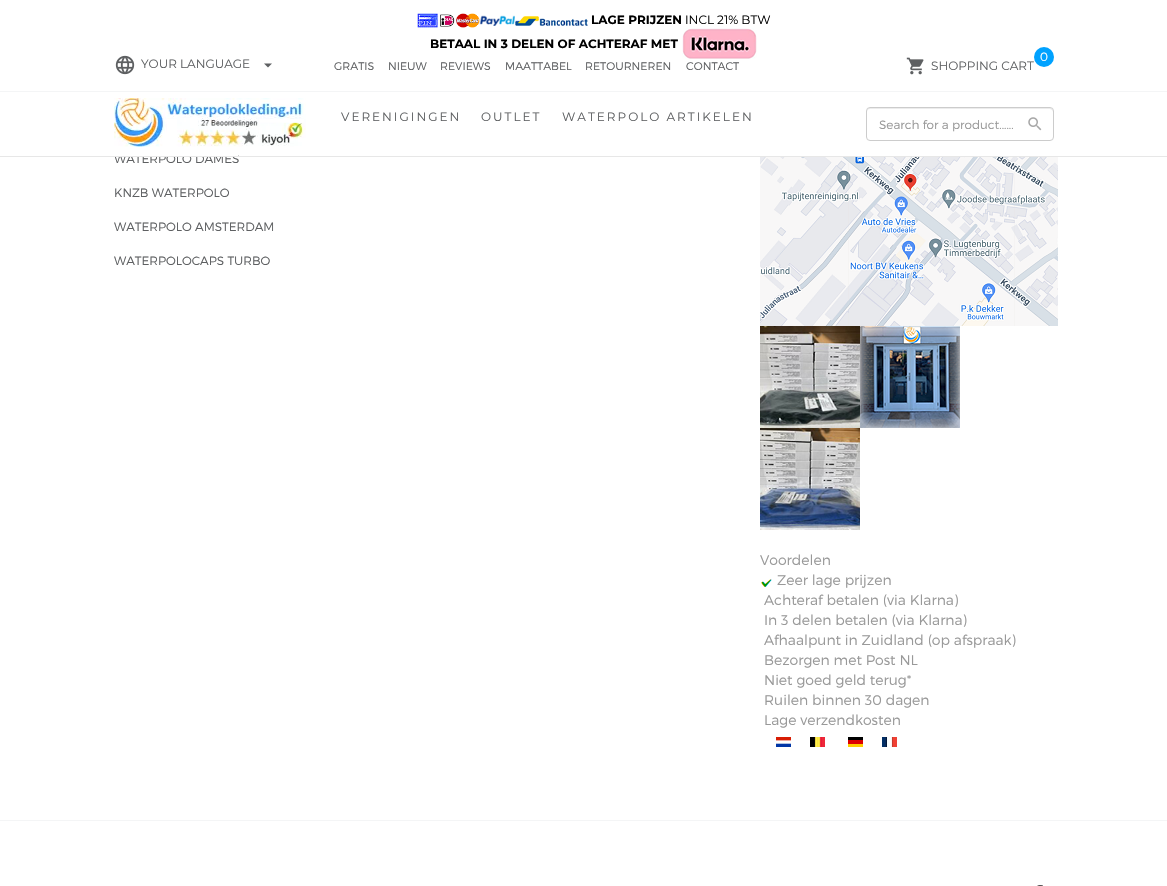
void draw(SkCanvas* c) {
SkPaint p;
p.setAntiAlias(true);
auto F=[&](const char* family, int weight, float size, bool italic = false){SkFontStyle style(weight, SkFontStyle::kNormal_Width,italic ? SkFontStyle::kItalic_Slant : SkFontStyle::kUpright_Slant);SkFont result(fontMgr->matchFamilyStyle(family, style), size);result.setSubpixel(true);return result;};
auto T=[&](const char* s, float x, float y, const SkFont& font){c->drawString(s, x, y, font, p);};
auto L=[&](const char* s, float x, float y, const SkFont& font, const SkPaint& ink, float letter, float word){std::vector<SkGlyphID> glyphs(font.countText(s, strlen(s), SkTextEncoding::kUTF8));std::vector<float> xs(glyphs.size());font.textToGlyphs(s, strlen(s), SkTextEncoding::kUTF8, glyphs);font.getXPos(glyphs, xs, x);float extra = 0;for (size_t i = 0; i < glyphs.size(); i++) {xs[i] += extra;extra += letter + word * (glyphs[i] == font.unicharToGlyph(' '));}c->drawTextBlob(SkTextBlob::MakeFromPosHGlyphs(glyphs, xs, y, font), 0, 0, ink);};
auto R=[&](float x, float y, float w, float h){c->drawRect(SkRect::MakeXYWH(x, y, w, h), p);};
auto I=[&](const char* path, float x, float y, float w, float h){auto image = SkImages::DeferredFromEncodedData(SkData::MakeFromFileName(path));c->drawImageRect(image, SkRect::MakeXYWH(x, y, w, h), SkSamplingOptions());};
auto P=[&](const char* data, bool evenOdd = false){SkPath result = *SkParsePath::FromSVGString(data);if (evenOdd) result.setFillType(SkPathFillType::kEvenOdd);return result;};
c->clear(0xffffffff);
auto f1 = F("Montserrat",300,12);
p.setColor(0xff5e6062);
T("WATERPOLO DAMES",114,163,f1);
p.setColor(0xffffffff);
R(113,154,125,2);
p.setColor(0xffe7e7e7);
R(0,156,1167,1);
I("1.png",417,13,63,15);
I("2.png",479,15,36,11);
I("3.png",515,16,73,10);
auto f2 = F("Montserrat",700,12);
p.setColor(0xff000000);
T("LAGE PRIJZEN",591,24,f2);
auto f3 = F("Montserrat",400,12);
T("INCL 21% BTW",685,24,f3);
T("BETAAL IN 3 DELEN OF ACHTERAF MET",430,48,f2);
I("4.png",682,28,75,31);
I("5.png",115,55,20,20);
p.setColor(0xff5e6062);
T("YOUR LANGUAGE",141,68,f3);
c->drawPath(P("M264 63.5h8l-4 4z"),p);
auto f4 = F("Montserrat",300,11);
T("GRATIS",334,70,f4);
T("NIEUW",388,70,f4);
T("REVIEWS",440,70,f4);
T("MAATTABEL",505,70,f4);
T("RETOURNEREN",585,70,f4);
T("CONTACT",686,70,f4);
I("6.png",906,57,18,18);
T("SHOPPING CART",931,70,f3);
p.setColor(0xff00a2ff);
c->drawCircle(1044,57,10,p);
p.setColor(0xffffffff);
T("0",1040,61,f3);
p.setColor(0xfff4f5f6);
R(0,91,1167,1);
I("7.png",114,98,192,49);
p.setColor(0xff5e6062);
L("VERENIGINGEN",341,121,f3,p,2,0);
L("OUTLET",481,121,f3,p,2,0);
L("WATERPOLO ARTIKELEN",562,121,f3,p,2,0);
p.setColor(0xffececec);
c->drawPath(P("M870 109h180l2 1l1 2c0-2-1-4-3-4h-181c-2 1-2 2-2 4c0-2 1-3 3-3z"),p);
p.setStroke(true);
p.setStrokeWidth(1);
p.setColor(0xffcccccc);
c->drawRoundRect(SkRect::MakeXYWH(866.5,107.5,187,33),3.5,3.5,p);
p.setStroke(false);
p.setColor(0xff999999);
T("Search for a product......",879,129,f1);
I("8.png",1028,117,14,14);
p.setColor(0xff5e6062);
T("KNZB WATERPOLO",114,197,f1);
T("WATERPOLO AMSTERDAM",114,231,f1);
T("WATERPOLOCAPS TURBO",114,265,f1);
I("9.png",760,157,298,169);
I("10.png",760,326,100,102);
I("11.png",860,326,100,102);
I("12.png",760,428,100,102);
auto f5 = F("Montserrat",300,14);
p.setColor(0xff999999);
T("Voordelen",760,565,f5);
I("13.png",761,579,11,8);
T("Zeer lage prijzen",777,585,f5);
T("Achteraf betalen (via Klarna)",764,605,f5);
T("In 3 delen betalen (via Klarna)",764,625,f5);
T("Afhaalpunt in Zuidland (op afspraak)",764,645,f5);
T("Bezorgen met Post NL",764,665,f5);
T("Niet goed geld terug*",764,685,f5);
T("Ruilen binnen 30 dagen",764,705,f5);
T("Lage verzendkosten",764,725,f5);
I("14.png",776,737,15,10);
I("15.png",810,737,15,10);
I("16.png",848,737,15,10);
I("17.png",882,737,15,10);
p.setColor(0xfff4f5f6);
R(0,820,1167,1);
I("18.png",1037,885,6,1);
}
